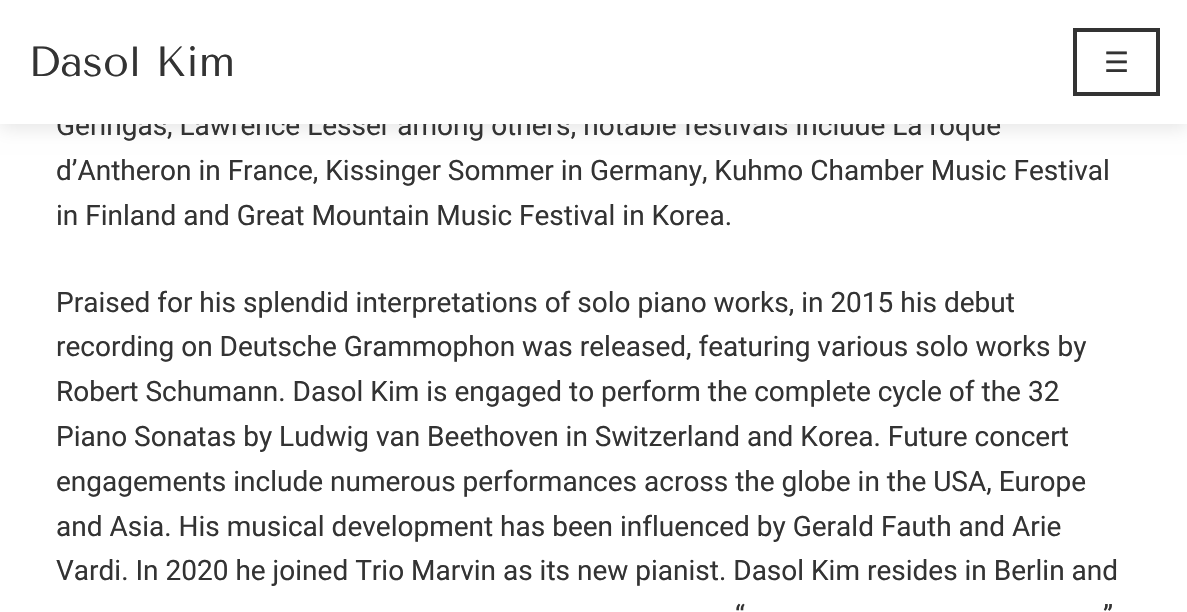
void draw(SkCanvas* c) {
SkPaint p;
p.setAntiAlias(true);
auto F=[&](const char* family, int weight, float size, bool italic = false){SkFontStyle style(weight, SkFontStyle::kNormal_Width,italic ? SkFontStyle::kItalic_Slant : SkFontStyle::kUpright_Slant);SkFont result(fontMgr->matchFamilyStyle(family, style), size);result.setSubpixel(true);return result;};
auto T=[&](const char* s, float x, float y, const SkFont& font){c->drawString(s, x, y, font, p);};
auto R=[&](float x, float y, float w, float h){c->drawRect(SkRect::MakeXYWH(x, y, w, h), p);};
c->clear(0xffffffff);
p.setColor(0x1a000000);
p.setMaskFilter(SkMaskFilter::MakeBlur(kNormal_SkBlurStyle, 9));
c->drawRect(SkRect::MakeXYWH(0,4,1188,124),p);
p.setMaskFilter(nullptr);
auto f1 = F("Roboto",400,28);
p.setColor(0xff333333);
T("Geringas, Lawrence Lesser among others; notable festivals include La roque",56,135,f1);
p.setColor(0xffffffff);
R(0,0,1187,124);
auto f2 = F("Tenor Sans",400,42);
p.setColor(0xff333333);
T("Dasol Kim",28,76,f2);
p.setStroke(true);
p.setStrokeWidth(4);
c->drawRect(SkRect::MakeXYWH(1075,30,83,64),p);
auto f3 = F("DejaVu Sans",400,28);
p.setStroke(false);
T("☰",1104,72,f3);
T("d’Antheron in France, Kissinger Sommer in Germany, Kuhmo Chamber Music Festival",56,180,f1);
T("in Finland and Great Mountain Music Festival in Korea.",56,225,f1);
T("Praised for his splendid interpretations of solo piano works, in 2015 his debut",56,312,f1);
T("recording on Deutsche Grammophon was released, featuring various solo works by",56,356,f1);
T("Robert Schumann. Dasol Kim is engaged to perform the complete cycle of the 32",56,401,f1);
T("Piano Sonatas by Ludwig van Beethoven in Switzerland and Korea. Future concert",56,446,f1);
T("engagements include numerous performances across the globe in the USA, Europe",56,491,f1);
T("and Asia. His musical development has been influenced by Gerald Fauth and Arie",56,536,f1);
T("Vardi. In 2020 he joined Trio Marvin as its new pianist. Dasol Kim resides in Berlin and",56,580,f1);
T("“",735,625,f1);
T("”",1103,625,f1);
}
